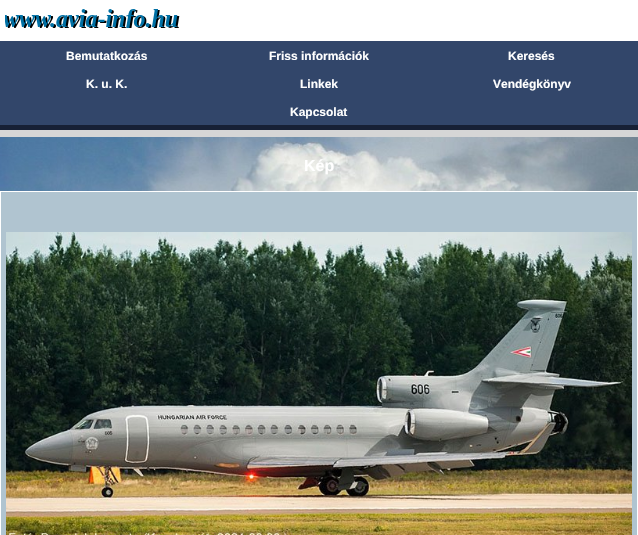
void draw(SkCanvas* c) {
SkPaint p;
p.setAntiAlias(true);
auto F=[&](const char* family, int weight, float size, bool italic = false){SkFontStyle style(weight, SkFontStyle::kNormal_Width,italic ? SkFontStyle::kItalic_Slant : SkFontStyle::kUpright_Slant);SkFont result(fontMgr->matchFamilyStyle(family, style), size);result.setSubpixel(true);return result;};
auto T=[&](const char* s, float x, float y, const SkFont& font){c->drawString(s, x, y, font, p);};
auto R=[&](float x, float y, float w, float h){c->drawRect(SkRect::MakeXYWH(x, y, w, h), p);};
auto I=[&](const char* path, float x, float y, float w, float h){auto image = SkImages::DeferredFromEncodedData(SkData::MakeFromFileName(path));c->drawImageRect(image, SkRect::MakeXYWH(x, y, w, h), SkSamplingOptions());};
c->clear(0xffffffff);
I("1.png",0,137,638,54);
I("2.png",5,9,175,19);
p.setColor(0xff32466a);
R(0,41,638,84);
auto f1 = F("Liberation Sans",700,12);
p.setColor(0xffffffff);
T("Bemutatkozás",66,60,f1);
T("Friss információk",269,60,f1);
T("Keresés",508,60,f1);
T("K. u. K.",86,88,f1);
T("Linkek",300,88,f1);
T("Vendégkönyv",493,88,f1);
T("Kapcsolat",290,116,f1);
p.setColor(0xffd6d6d6);
R(0,130,638,7);
p.setColor(0xff172035);
R(0,125,638,5);
auto f2 = F("Liberation Sans",700,16);
p.setColor(0xffffffff);
T("Kép",304,171,f2);
p.setColor(0xffb0c4d0);
R(1,192,636,343);
I("3.png",6,232,626,303);
}
